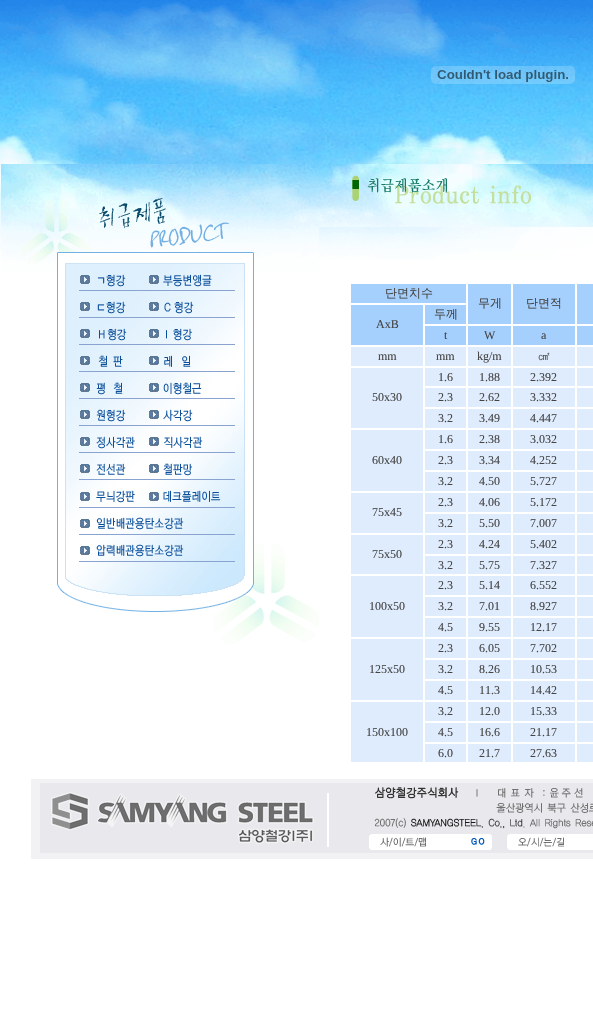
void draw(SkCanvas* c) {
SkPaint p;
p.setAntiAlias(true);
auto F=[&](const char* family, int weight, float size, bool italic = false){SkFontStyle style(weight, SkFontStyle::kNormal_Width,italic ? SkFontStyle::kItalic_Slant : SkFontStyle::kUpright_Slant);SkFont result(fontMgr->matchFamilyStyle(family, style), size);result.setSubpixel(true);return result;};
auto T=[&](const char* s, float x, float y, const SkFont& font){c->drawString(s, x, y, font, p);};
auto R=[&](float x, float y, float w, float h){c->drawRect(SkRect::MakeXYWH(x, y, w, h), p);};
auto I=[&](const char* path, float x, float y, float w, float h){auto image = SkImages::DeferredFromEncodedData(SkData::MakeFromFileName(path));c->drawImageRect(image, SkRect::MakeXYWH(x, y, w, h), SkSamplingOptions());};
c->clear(0xffffffff);
I("1.png",0,0,593,260);
I("2.png",431,66,144,18);
I("3.png",1,164,318,595);
I("4.png",319,164,274,63);
p.setColor(0xffdfecfd);
R(351,347,242,415);
p.setColor(0xffa5cffd);
R(351,284,115,19);
auto f1 = F("WenQuanYi Zen Hei",500,12);
p.setColor(0xff444444);
T("단면치수",385,297,f1);
p.setColor(0xffa5cffd);
R(577,284,16,40);
R(468,284,43,40);
p.setColor(0xff444444);
T("무게",478,307,f1);
p.setColor(0xffa5cffd);
R(513,284,62,40);
p.setColor(0xff444444);
T("단면적",526,307,f1);
p.setColor(0xffa5cffd);
R(425,305,41,19);
p.setColor(0xff444444);
T("두께",434,318,f1);
p.setColor(0xffa5cffd);
R(351,305,72,40);
auto f2 = F("Liberation Serif",400,12);
p.setColor(0xff444444);
T("AxB",376,328,f2);
p.setColor(0xffa5cffd);
R(425,326,41,19);
p.setColor(0xff444444);
T("t",444,339,f2);
p.setColor(0xffa5cffd);
R(468,326,43,19);
p.setColor(0xff444444);
T("W",484,339,f2);
p.setColor(0xffa5cffd);
R(513,326,62,19);
p.setColor(0xff444444);
T("a",541,339,f2);
p.setColor(0xffa5cffd);
R(577,326,16,19);
p.setStroke(true);
p.setStrokeWidth(1);
p.setColor(0xffffffff);
c->drawRect(SkRect::MakeXYWH(350.5,346.5,73,20),p);
p.setStroke(false);
p.setColor(0xff444444);
T("mm",378,360,f2);
p.setStroke(true);
p.setColor(0xffffffff);
c->drawRect(SkRect::MakeXYWH(424.5,346.5,42,20),p);
p.setStroke(false);
p.setColor(0xff444444);
T("mm",436,360,f2);
p.setStroke(true);
p.setColor(0xffffffff);
c->drawRect(SkRect::MakeXYWH(467.5,346.5,44,20),p);
p.setStroke(false);
p.setColor(0xff444444);
T("kg/m",477,360,f2);
p.setStroke(true);
p.setColor(0xffffffff);
c->drawRect(SkRect::MakeXYWH(512.5,346.5,63,20),p);
p.setStroke(false);
p.setColor(0xff444444);
T("㎠",538,360,f1);
p.setStroke(true);
p.setColor(0xffffffff);
c->drawRect(SkRect::MakeXYWH(576.5,346.5,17,20),p);
c->drawRect(SkRect::MakeXYWH(424.5,367.5,42,19),p);
p.setStroke(false);
p.setColor(0xff444444);
T("1.6",438,381,f2);
p.setStroke(true);
p.setColor(0xffffffff);
c->drawRect(SkRect::MakeXYWH(467.5,367.5,44,19),p);
p.setStroke(false);
p.setColor(0xff444444);
T("1.88",479,381,f2);
p.setStroke(true);
p.setColor(0xffffffff);
c->drawRect(SkRect::MakeXYWH(512.5,367.5,63,19),p);
p.setStroke(false);
p.setColor(0xff444444);
T("2.392",530,381,f2);
p.setStroke(true);
p.setColor(0xffffffff);
c->drawRect(SkRect::MakeXYWH(576.5,367.5,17,19),p);
c->drawRect(SkRect::MakeXYWH(350.5,367.5,73,61),p);
p.setStroke(false);
p.setColor(0xff444444);
T("50x30",372,401,f2);
p.setStroke(true);
p.setColor(0xffffffff);
c->drawRect(SkRect::MakeXYWH(424.5,387.5,42,20),p);
p.setStroke(false);
p.setColor(0xff444444);
T("2.3",438,401,f2);
p.setStroke(true);
p.setColor(0xffffffff);
c->drawRect(SkRect::MakeXYWH(467.5,387.5,44,20),p);
p.setStroke(false);
p.setColor(0xff444444);
T("2.62",479,401,f2);
p.setStroke(true);
p.setColor(0xffffffff);
c->drawRect(SkRect::MakeXYWH(512.5,387.5,63,20),p);
p.setStroke(false);
p.setColor(0xff444444);
T("3.332",530,401,f2);
p.setStroke(true);
p.setColor(0xffffffff);
c->drawRect(SkRect::MakeXYWH(576.5,387.5,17,20),p);
c->drawRect(SkRect::MakeXYWH(424.5,408.5,42,20),p);
p.setStroke(false);
p.setColor(0xff444444);
T("3.2",438,422,f2);
p.setStroke(true);
p.setColor(0xffffffff);
c->drawRect(SkRect::MakeXYWH(467.5,408.5,44,20),p);
p.setStroke(false);
p.setColor(0xff444444);
T("3.49",479,422,f2);
p.setStroke(true);
p.setColor(0xffffffff);
c->drawRect(SkRect::MakeXYWH(512.5,408.5,63,20),p);
p.setStroke(false);
p.setColor(0xff444444);
T("4.447",530,422,f2);
p.setStroke(true);
p.setColor(0xffffffff);
c->drawRect(SkRect::MakeXYWH(576.5,408.5,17,20),p);
c->drawRect(SkRect::MakeXYWH(424.5,429.5,42,20),p);
p.setStroke(false);
p.setColor(0xff444444);
T("1.6",438,443,f2);
p.setStroke(true);
p.setColor(0xffffffff);
c->drawRect(SkRect::MakeXYWH(467.5,429.5,44,20),p);
p.setStroke(false);
p.setColor(0xff444444);
T("2.38",479,443,f2);
p.setStroke(true);
p.setColor(0xffffffff);
c->drawRect(SkRect::MakeXYWH(512.5,429.5,63,20),p);
p.setStroke(false);
p.setColor(0xff444444);
T("3.032",530,443,f2);
p.setStroke(true);
p.setColor(0xffffffff);
c->drawRect(SkRect::MakeXYWH(576.5,429.5,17,20),p);
c->drawRect(SkRect::MakeXYWH(350.5,429.5,73,62),p);
p.setStroke(false);
p.setColor(0xff444444);
T("60x40",372,464,f2);
p.setStroke(true);
p.setColor(0xffffffff);
c->drawRect(SkRect::MakeXYWH(424.5,450.5,42,20),p);
p.setStroke(false);
p.setColor(0xff444444);
T("2.3",438,464,f2);
p.setStroke(true);
p.setColor(0xffffffff);
c->drawRect(SkRect::MakeXYWH(467.5,450.5,44,20),p);
p.setStroke(false);
p.setColor(0xff444444);
T("3.34",479,464,f2);
p.setStroke(true);
p.setColor(0xffffffff);
c->drawRect(SkRect::MakeXYWH(512.5,450.5,63,20),p);
p.setStroke(false);
p.setColor(0xff444444);
T("4.252",530,464,f2);
p.setStroke(true);
p.setColor(0xffffffff);
c->drawRect(SkRect::MakeXYWH(576.5,450.5,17,20),p);
c->drawRect(SkRect::MakeXYWH(424.5,471.5,42,20),p);
p.setStroke(false);
p.setColor(0xff444444);
T("3.2",438,485,f2);
p.setStroke(true);
p.setColor(0xffffffff);
c->drawRect(SkRect::MakeXYWH(467.5,471.5,44,20),p);
p.setStroke(false);
p.setColor(0xff444444);
T("4.50",479,485,f2);
p.setStroke(true);
p.setColor(0xffffffff);
c->drawRect(SkRect::MakeXYWH(512.5,471.5,63,20),p);
p.setStroke(false);
p.setColor(0xff444444);
T("5.727",530,485,f2);
p.setStroke(true);
p.setColor(0xffffffff);
c->drawRect(SkRect::MakeXYWH(576.5,471.5,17,20),p);
c->drawRect(SkRect::MakeXYWH(424.5,492.5,42,20),p);
p.setStroke(false);
p.setColor(0xff444444);
T("2.3",438,506,f2);
p.setStroke(true);
p.setColor(0xffffffff);
c->drawRect(SkRect::MakeXYWH(467.5,492.5,44,20),p);
p.setStroke(false);
p.setColor(0xff444444);
T("4.06",479,506,f2);
p.setStroke(true);
p.setColor(0xffffffff);
c->drawRect(SkRect::MakeXYWH(512.5,492.5,63,20),p);
p.setStroke(false);
p.setColor(0xff444444);
T("5.172",530,506,f2);
p.setStroke(true);
p.setColor(0xffffffff);
c->drawRect(SkRect::MakeXYWH(576.5,492.5,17,20),p);
c->drawRect(SkRect::MakeXYWH(350.5,492.5,73,41),p);
p.setStroke(false);
p.setColor(0xff444444);
T("75x45",372,516,f2);
p.setStroke(true);
p.setColor(0xffffffff);
c->drawRect(SkRect::MakeXYWH(424.5,513.5,42,20),p);
p.setStroke(false);
p.setColor(0xff444444);
T("3.2",438,527,f2);
p.setStroke(true);
p.setColor(0xffffffff);
c->drawRect(SkRect::MakeXYWH(467.5,513.5,44,20),p);
p.setStroke(false);
p.setColor(0xff444444);
T("5.50",479,527,f2);
p.setStroke(true);
p.setColor(0xffffffff);
c->drawRect(SkRect::MakeXYWH(512.5,513.5,63,20),p);
p.setStroke(false);
p.setColor(0xff444444);
T("7.007",530,527,f2);
p.setStroke(true);
p.setColor(0xffffffff);
c->drawRect(SkRect::MakeXYWH(576.5,513.5,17,20),p);
c->drawRect(SkRect::MakeXYWH(424.5,534.5,42,20),p);
p.setStroke(false);
p.setColor(0xff444444);
T("2.3",438,548,f2);
p.setStroke(true);
p.setColor(0xffffffff);
c->drawRect(SkRect::MakeXYWH(467.5,534.5,44,20),p);
p.setStroke(false);
p.setColor(0xff444444);
T("4.24",479,548,f2);
p.setStroke(true);
p.setColor(0xffffffff);
c->drawRect(SkRect::MakeXYWH(512.5,534.5,63,20),p);
p.setStroke(false);
p.setColor(0xff444444);
T("5.402",530,548,f2);
p.setStroke(true);
p.setColor(0xffffffff);
c->drawRect(SkRect::MakeXYWH(576.5,534.5,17,20),p);
c->drawRect(SkRect::MakeXYWH(350.5,534.5,73,40),p);
p.setStroke(false);
p.setColor(0xff444444);
T("75x50",372,558,f2);
p.setStroke(true);
p.setColor(0xffffffff);
c->drawRect(SkRect::MakeXYWH(424.5,555.5,42,19),p);
p.setStroke(false);
p.setColor(0xff444444);
T("3.2",438,569,f2);
p.setStroke(true);
p.setColor(0xffffffff);
c->drawRect(SkRect::MakeXYWH(467.5,555.5,44,19),p);
p.setStroke(false);
p.setColor(0xff444444);
T("5.75",479,569,f2);
p.setStroke(true);
p.setColor(0xffffffff);
c->drawRect(SkRect::MakeXYWH(512.5,555.5,63,19),p);
p.setStroke(false);
p.setColor(0xff444444);
T("7.327",530,569,f2);
p.setStroke(true);
p.setColor(0xffffffff);
c->drawRect(SkRect::MakeXYWH(576.5,555.5,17,19),p);
c->drawRect(SkRect::MakeXYWH(424.5,575.5,42,20),p);
p.setStroke(false);
p.setColor(0xff444444);
T("2.3",438,589,f2);
p.setStroke(true);
p.setColor(0xffffffff);
c->drawRect(SkRect::MakeXYWH(467.5,575.5,44,20),p);
p.setStroke(false);
p.setColor(0xff444444);
T("5.14",479,589,f2);
p.setStroke(true);
p.setColor(0xffffffff);
c->drawRect(SkRect::MakeXYWH(512.5,575.5,63,20),p);
p.setStroke(false);
p.setColor(0xff444444);
T("6.552",530,589,f2);
p.setStroke(true);
p.setColor(0xffffffff);
c->drawRect(SkRect::MakeXYWH(576.5,575.5,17,20),p);
c->drawRect(SkRect::MakeXYWH(350.5,575.5,73,62),p);
p.setStroke(false);
p.setColor(0xff444444);
T("100x50",369,610,f2);
p.setStroke(true);
p.setColor(0xffffffff);
c->drawRect(SkRect::MakeXYWH(424.5,596.5,42,20),p);
p.setStroke(false);
p.setColor(0xff444444);
T("3.2",438,610,f2);
p.setStroke(true);
p.setColor(0xffffffff);
c->drawRect(SkRect::MakeXYWH(467.5,596.5,44,20),p);
p.setStroke(false);
p.setColor(0xff444444);
T("7.01",479,610,f2);
p.setStroke(true);
p.setColor(0xffffffff);
c->drawRect(SkRect::MakeXYWH(512.5,596.5,63,20),p);
p.setStroke(false);
p.setColor(0xff444444);
T("8.927",530,610,f2);
p.setStroke(true);
p.setColor(0xffffffff);
c->drawRect(SkRect::MakeXYWH(576.5,596.5,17,20),p);
c->drawRect(SkRect::MakeXYWH(424.5,617.5,42,20),p);
p.setStroke(false);
p.setColor(0xff444444);
T("4.5",438,631,f2);
p.setStroke(true);
p.setColor(0xffffffff);
c->drawRect(SkRect::MakeXYWH(467.5,617.5,44,20),p);
p.setStroke(false);
p.setColor(0xff444444);
T("9.55",479,631,f2);
p.setStroke(true);
p.setColor(0xffffffff);
c->drawRect(SkRect::MakeXYWH(512.5,617.5,63,20),p);
p.setStroke(false);
p.setColor(0xff444444);
T("12.17",530,631,f2);
p.setStroke(true);
p.setColor(0xffffffff);
c->drawRect(SkRect::MakeXYWH(576.5,617.5,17,20),p);
c->drawRect(SkRect::MakeXYWH(424.5,638.5,42,20),p);
p.setStroke(false);
p.setColor(0xff444444);
T("2.3",438,652,f2);
p.setStroke(true);
p.setColor(0xffffffff);
c->drawRect(SkRect::MakeXYWH(467.5,638.5,44,20),p);
p.setStroke(false);
p.setColor(0xff444444);
T("6.05",479,652,f2);
p.setStroke(true);
p.setColor(0xffffffff);
c->drawRect(SkRect::MakeXYWH(512.5,638.5,63,20),p);
p.setStroke(false);
p.setColor(0xff444444);
T("7.702",530,652,f2);
p.setStroke(true);
p.setColor(0xffffffff);
c->drawRect(SkRect::MakeXYWH(576.5,638.5,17,20),p);
c->drawRect(SkRect::MakeXYWH(350.5,638.5,73,62),p);
p.setStroke(false);
p.setColor(0xff444444);
T("125x50",369,673,f2);
p.setStroke(true);
p.setColor(0xffffffff);
c->drawRect(SkRect::MakeXYWH(424.5,659.5,42,20),p);
p.setStroke(false);
p.setColor(0xff444444);
T("3.2",438,673,f2);
p.setStroke(true);
p.setColor(0xffffffff);
c->drawRect(SkRect::MakeXYWH(467.5,659.5,44,20),p);
p.setStroke(false);
p.setColor(0xff444444);
T("8.26",479,673,f2);
p.setStroke(true);
p.setColor(0xffffffff);
c->drawRect(SkRect::MakeXYWH(512.5,659.5,63,20),p);
p.setStroke(false);
p.setColor(0xff444444);
T("10.53",530,673,f2);
p.setStroke(true);
p.setColor(0xffffffff);
c->drawRect(SkRect::MakeXYWH(576.5,659.5,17,20),p);
c->drawRect(SkRect::MakeXYWH(424.5,680.5,42,20),p);
p.setStroke(false);
p.setColor(0xff444444);
T("4.5",438,694,f2);
p.setStroke(true);
p.setColor(0xffffffff);
c->drawRect(SkRect::MakeXYWH(467.5,680.5,44,20),p);
p.setStroke(false);
p.setColor(0xff444444);
T("11.3",479,694,f2);
p.setStroke(true);
p.setColor(0xffffffff);
c->drawRect(SkRect::MakeXYWH(512.5,680.5,63,20),p);
p.setStroke(false);
p.setColor(0xff444444);
T("14.42",530,694,f2);
p.setStroke(true);
p.setColor(0xffffffff);
c->drawRect(SkRect::MakeXYWH(576.5,680.5,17,20),p);
c->drawRect(SkRect::MakeXYWH(424.5,701.5,42,20),p);
p.setStroke(false);
p.setColor(0xff444444);
T("3.2",438,715,f2);
p.setStroke(true);
p.setColor(0xffffffff);
c->drawRect(SkRect::MakeXYWH(467.5,701.5,44,20),p);
p.setStroke(false);
p.setColor(0xff444444);
T("12.0",479,715,f2);
p.setStroke(true);
p.setColor(0xffffffff);
c->drawRect(SkRect::MakeXYWH(512.5,701.5,63,20),p);
p.setStroke(false);
p.setColor(0xff444444);
T("15.33",530,715,f2);
p.setStroke(true);
p.setColor(0xffffffff);
c->drawRect(SkRect::MakeXYWH(576.5,701.5,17,20),p);
c->drawRect(SkRect::MakeXYWH(350.5,701.5,73,61),p);
p.setStroke(false);
p.setColor(0xff444444);
T("150x100",366,736,f2);
p.setStroke(true);
p.setColor(0xffffffff);
c->drawRect(SkRect::MakeXYWH(424.5,722.5,42,20),p);
p.setStroke(false);
p.setColor(0xff444444);
T("4.5",438,736,f2);
p.setStroke(true);
p.setColor(0xffffffff);
c->drawRect(SkRect::MakeXYWH(467.5,722.5,44,20),p);
p.setStroke(false);
p.setColor(0xff444444);
T("16.6",479,736,f2);
p.setStroke(true);
p.setColor(0xffffffff);
c->drawRect(SkRect::MakeXYWH(512.5,722.5,63,20),p);
p.setStroke(false);
p.setColor(0xff444444);
T("21.17",530,736,f2);
p.setStroke(true);
p.setColor(0xffffffff);
c->drawRect(SkRect::MakeXYWH(576.5,722.5,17,20),p);
c->drawRect(SkRect::MakeXYWH(424.5,743.5,42,19),p);
p.setStroke(false);
p.setColor(0xff444444);
T("6.0",438,757,f2);
p.setStroke(true);
p.setColor(0xffffffff);
c->drawRect(SkRect::MakeXYWH(467.5,743.5,44,19),p);
p.setStroke(false);
p.setColor(0xff444444);
T("21.7",479,757,f2);
p.setStroke(true);
p.setColor(0xffffffff);
c->drawRect(SkRect::MakeXYWH(512.5,743.5,63,19),p);
p.setStroke(false);
p.setColor(0xff444444);
T("27.63",530,757,f2);
p.setStroke(true);
p.setColor(0xffffffff);
c->drawRect(SkRect::MakeXYWH(576.5,743.5,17,19),p);
I("5.png",31,779,562,80);
}
